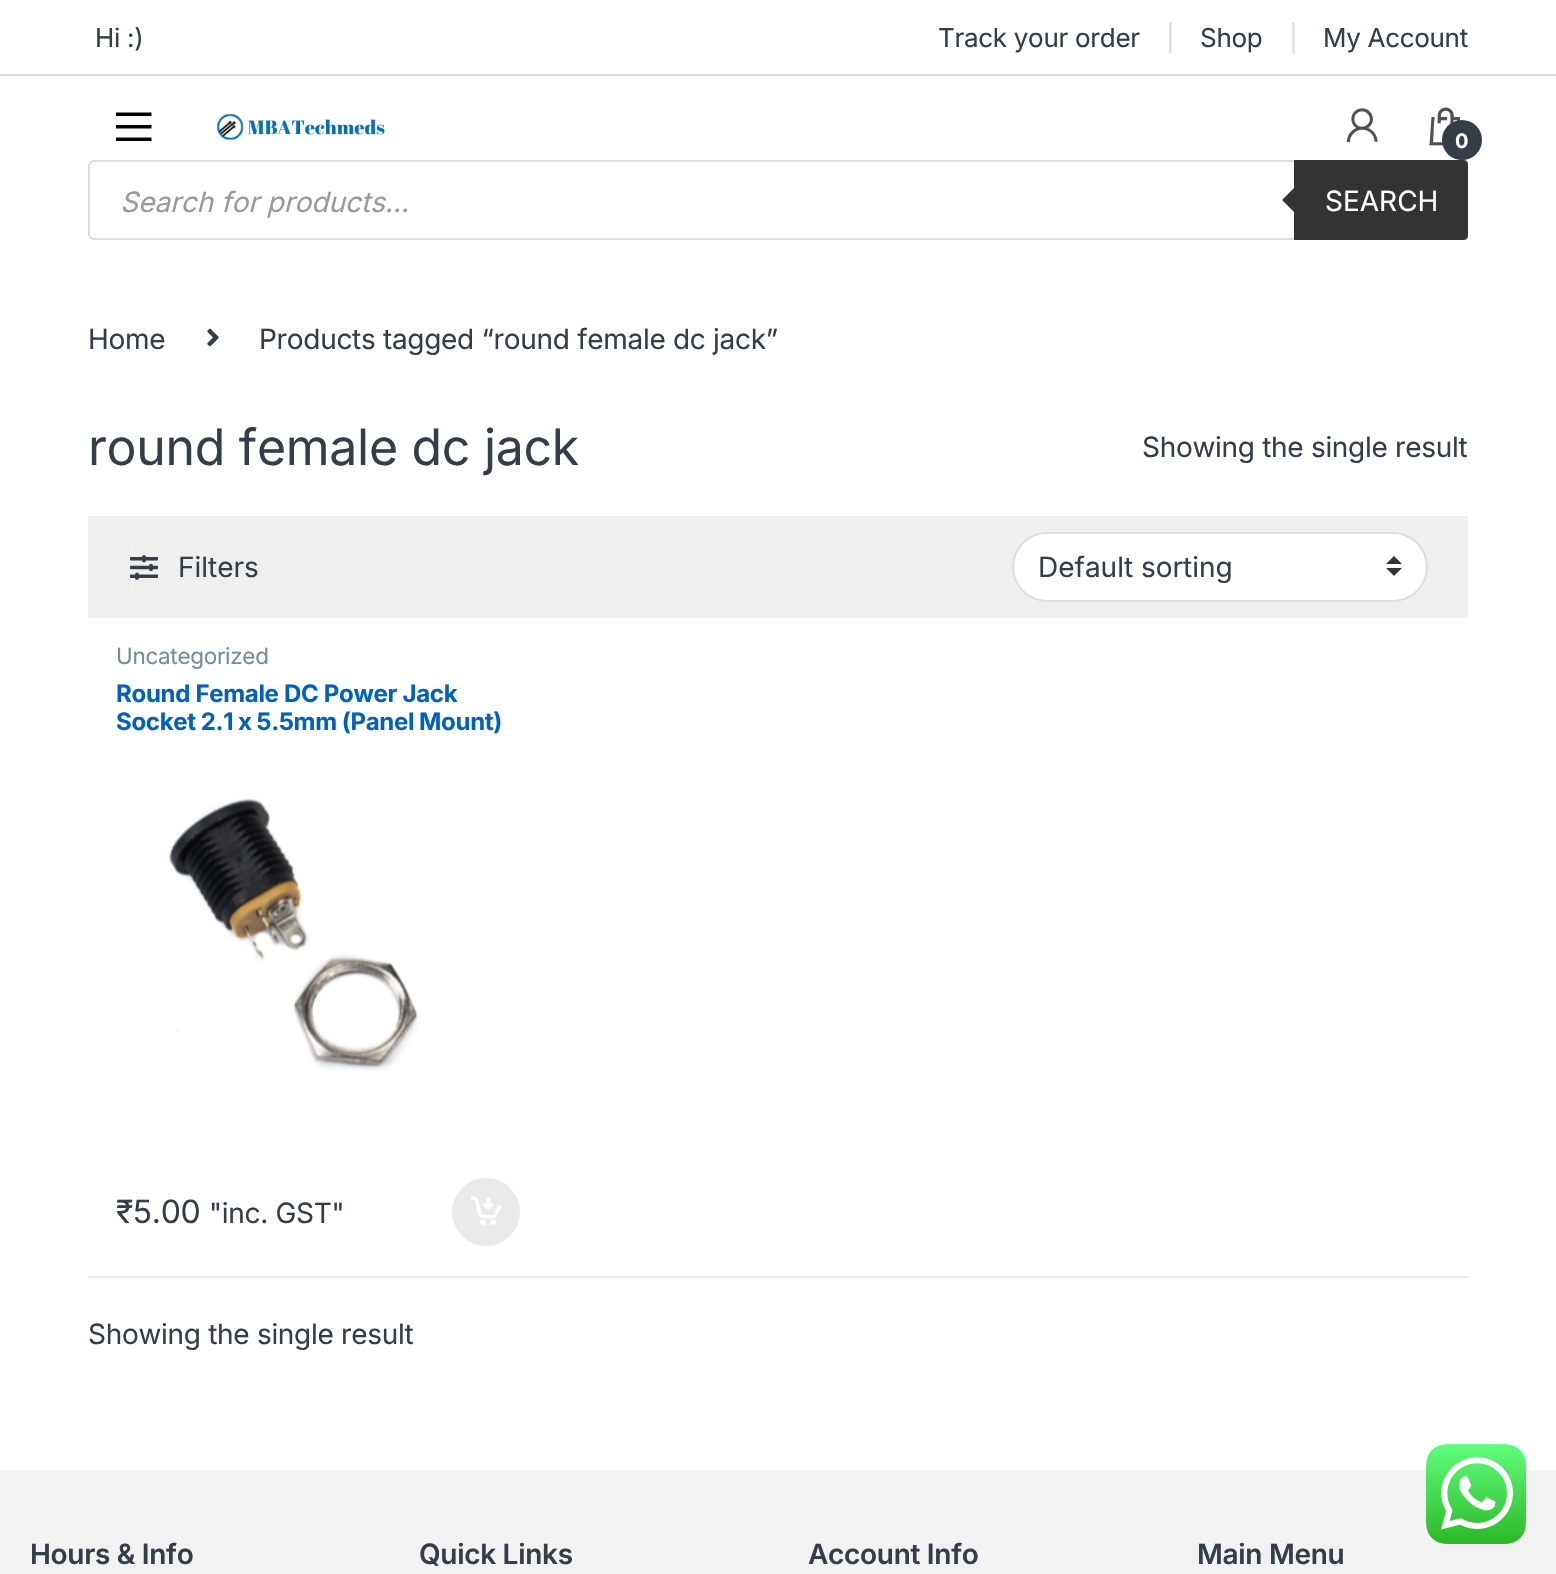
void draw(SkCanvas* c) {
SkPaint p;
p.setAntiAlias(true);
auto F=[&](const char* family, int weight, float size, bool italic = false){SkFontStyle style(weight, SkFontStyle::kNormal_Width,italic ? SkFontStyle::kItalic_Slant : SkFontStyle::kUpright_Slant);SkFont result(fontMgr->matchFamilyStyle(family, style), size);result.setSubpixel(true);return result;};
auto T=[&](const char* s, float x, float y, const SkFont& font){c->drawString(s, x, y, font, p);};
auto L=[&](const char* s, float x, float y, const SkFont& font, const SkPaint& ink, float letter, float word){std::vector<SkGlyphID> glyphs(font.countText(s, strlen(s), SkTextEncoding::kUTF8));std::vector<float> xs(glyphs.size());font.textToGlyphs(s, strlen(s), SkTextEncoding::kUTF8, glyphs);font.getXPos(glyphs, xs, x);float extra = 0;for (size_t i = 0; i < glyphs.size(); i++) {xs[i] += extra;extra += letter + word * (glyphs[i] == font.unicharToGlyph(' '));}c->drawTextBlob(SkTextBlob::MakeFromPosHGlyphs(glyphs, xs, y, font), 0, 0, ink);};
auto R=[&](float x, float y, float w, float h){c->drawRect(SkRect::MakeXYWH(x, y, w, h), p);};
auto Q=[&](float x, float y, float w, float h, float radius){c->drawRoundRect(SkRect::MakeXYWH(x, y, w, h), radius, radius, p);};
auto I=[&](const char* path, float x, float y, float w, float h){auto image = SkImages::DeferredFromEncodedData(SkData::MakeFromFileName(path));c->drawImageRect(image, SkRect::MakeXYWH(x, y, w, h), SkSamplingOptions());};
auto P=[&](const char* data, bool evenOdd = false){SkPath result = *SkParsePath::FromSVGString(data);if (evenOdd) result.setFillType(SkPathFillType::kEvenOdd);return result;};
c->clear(0xffffffff);
p.setColor(0xffdddddd);
R(0,74,1556,2);
auto f1 = F("Inter",400,26);
p.setColor(0xff333e48);
L("Hi :)",95,47,f1,p,-.3,0);
L("Track your order",938,47,f1,p,-.3,0);
p.setColor(0xffdddddd);
L("|",1166,47,f1,p,-.3,0);
p.setColor(0xff333e48);
L("Shop",1200,47,f1,p,-.3,0);
p.setColor(0xffdddddd);
L("|",1289,47,f1,p,-.3,0);
p.setColor(0xff333e48);
L("My Account",1323,47,f1,p,-.3,0);
p.setColor(0xff000000);
c->drawPath(P("M116 141v-3.5h35.5v3.5zm0-16h35.5v3.5h-35.5zm0-12.5h35.5v3.5h-35.5z"),p);
I("1.png",216,114,169,26);
I("2.png",1346,108,32,35);
I("3.png",1429,107,32,39);
p.setColor(0xff333e48);
c->drawCircle(1462,140,20,p);
auto f2 = F("Inter",700,20);
p.setColor(0xffffffff);
L("0",1455,148,f2,p,-.3,0);
p.setStroke(true);
p.setStrokeWidth(2);
p.setColor(0xffdddddd);
c->drawRoundRect(SkRect::MakeXYWH(89,161,1378,78),5,5,p);
auto f3 = F("Inter",400,28,true);
p.setStroke(false);
p.setColor(0xff999999);
T("Search for products...",120,212,f3);
p.setColor(0xff333333);
c->drawPath(P("M1294 160h170c2 0 4 2 4 4v72c0 2-2 4-4 4h-170z"),p);
c->drawPath(P("M1298 184v32l-16-16z"),p);
auto f4 = F("Inter",400,28);
p.setColor(0xffffffff);
T("SEARCH",1325,211,f4);
p.setColor(0xff333e48);
L("Home",88,349,f4,p,-.3,0);
I("4.png",207,328,12,19);
L("Products tagged “round female dc jack”",259,349,f4,p,-.3,0);
auto f5 = F("Inter",400,50);
L("round female dc jack",88,465,f5,p,-.3,0);
L("Showing the single result",1142,457,f4,p,-.3,0);
p.setColor(0xffefefef);
R(88,516,1380,102);
p.setStroke(true);
p.setColor(0xffefecec);
c->drawRect(SkRect::MakeXYWH(129,543,130,50),p);
I("5.png",130,555,28,25);
p.setStroke(false);
p.setColor(0xff333e48);
T("Filters",178,577,f4);
p.setColor(0xffffffff);
Q(1012,532,416,70,35);
I("6.png",1386,556,16,20);
p.setStroke(true);
p.setColor(0xffdddddd);
c->drawRoundRect(SkRect::MakeXYWH(1013,533,414,68),34,34,p);
p.setStroke(false);
p.setColor(0xff333e48);
T("Default sorting",1038,577,f4);
auto f6 = F("Inter",400,22.5);
p.setColor(0xff768b9e);
L("Uncategorized",116,664,f6,p,-.3,0);
auto f7 = F("Inter",700,24);
p.setColor(0xff0062bd);
L("Round Female DC Power Jack",116,702,f7,p,-.3,0);
L("Socket 2.1 x 5.5mm (Panel Mount)",116,730,f7,p,-.3,-.5);
I("7.png",168,798,250,274);
auto f8 = F("Inter",400,32);
p.setColor(0xff333e48);
L("₹5.00",116,1223,f8,p,-.3,0);
L("\"inc. GST\"",209,1223,f4,p,-.3,0);
p.setColor(0xffeaeaea);
c->drawCircle(486,1212,34,p);
I("8.png",471,1196,31,29);
p.setColor(0xffe7e7e7);
R(88,1276,1380,2);
p.setColor(0xff333e48);
L("Showing the single result",88,1344,f4,p,-.3,0);
p.setColor(0xfff2f2f2);
R(0,1470,1556,104);
auto f9 = F("Inter",600,28);
p.setColor(0xff333e48);
L("Hours & Info",30,1564,f9,p,-.3,0);
L("Quick Links",419,1564,f9,p,-.3,0);
L("Account Info",808,1564,f9,p,-.3,0);
L("Main Menu",1197,1564,f9,p,-.3,0);
I("9.png",1426,1444,100,100);
}
